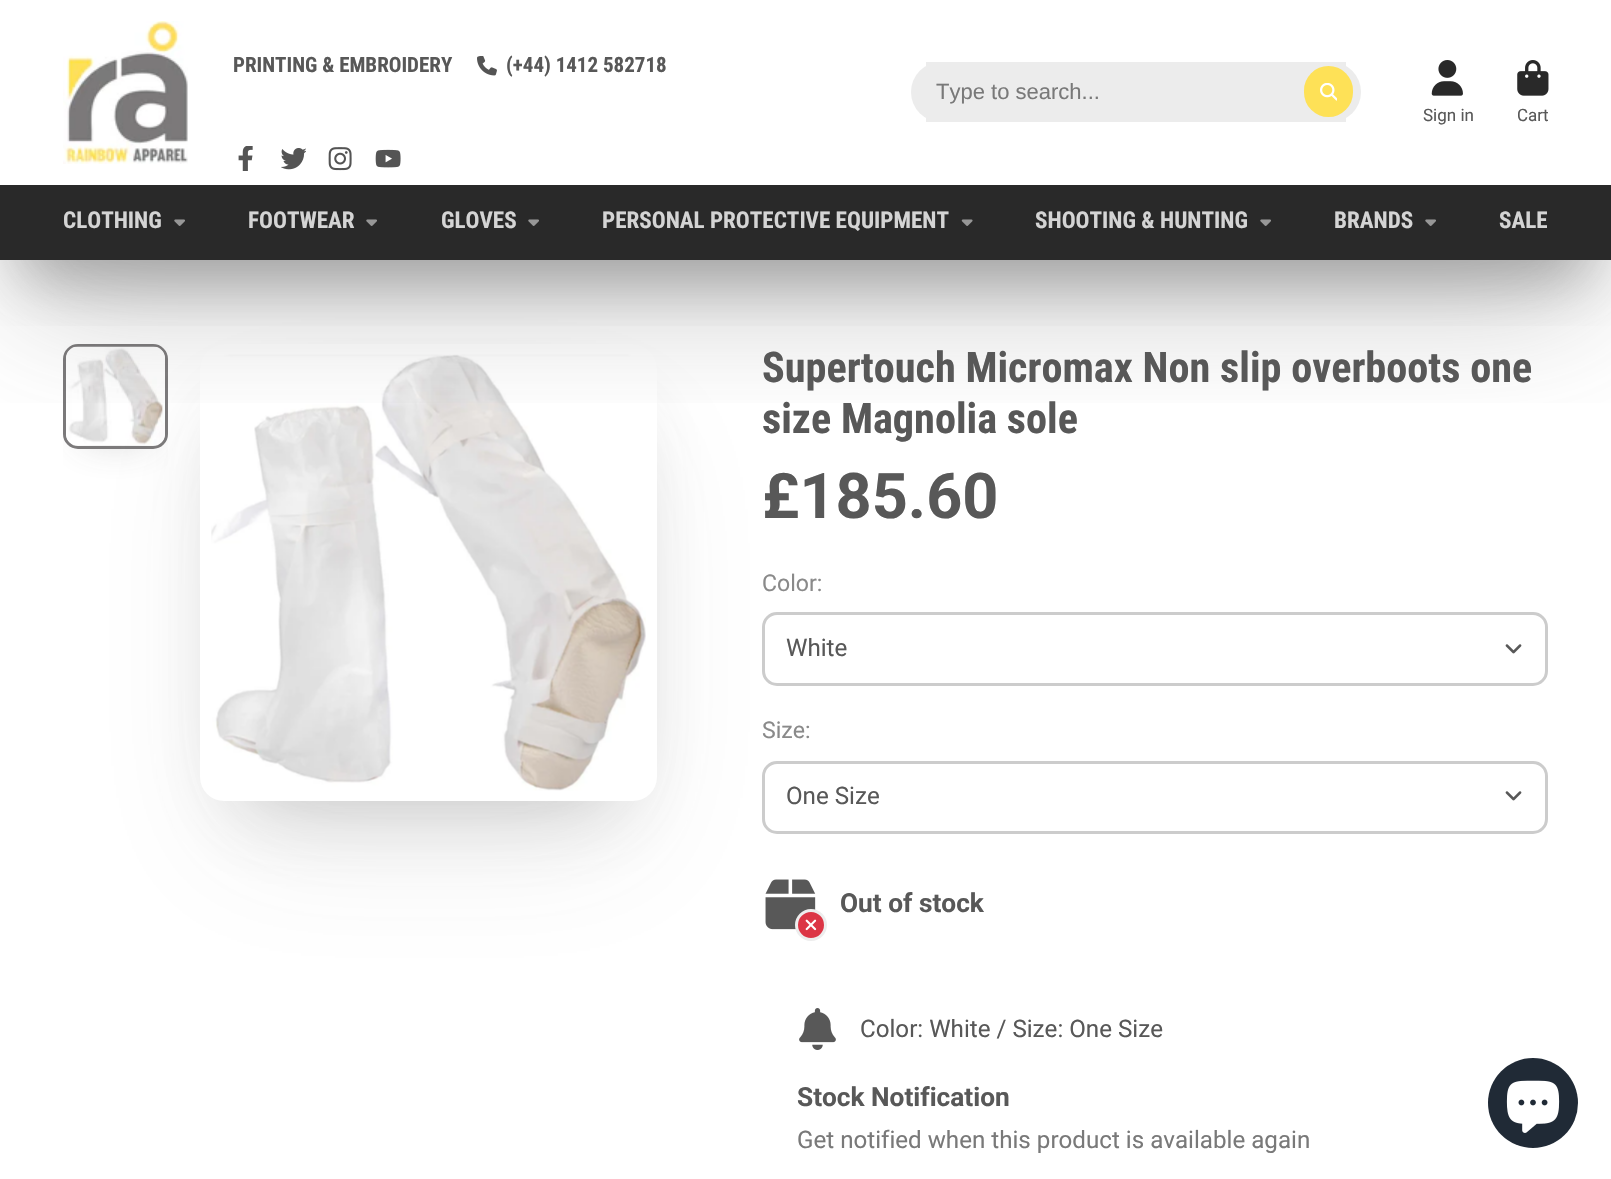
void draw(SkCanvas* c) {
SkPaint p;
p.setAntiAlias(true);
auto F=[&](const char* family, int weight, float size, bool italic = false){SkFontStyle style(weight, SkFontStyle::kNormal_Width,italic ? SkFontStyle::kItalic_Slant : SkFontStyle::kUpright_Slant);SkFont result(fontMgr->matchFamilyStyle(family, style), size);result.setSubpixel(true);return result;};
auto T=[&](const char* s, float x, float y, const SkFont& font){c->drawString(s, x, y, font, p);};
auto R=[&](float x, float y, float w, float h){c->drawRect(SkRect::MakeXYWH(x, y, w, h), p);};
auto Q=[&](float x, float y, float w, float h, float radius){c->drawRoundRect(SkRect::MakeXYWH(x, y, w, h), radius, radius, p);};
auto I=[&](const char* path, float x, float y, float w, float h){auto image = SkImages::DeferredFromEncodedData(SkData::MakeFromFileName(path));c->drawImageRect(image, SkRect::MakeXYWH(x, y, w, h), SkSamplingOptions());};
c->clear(0xffffffff);
c->save();
c->clipRect(SkRect::MakeXYWH(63,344,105,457));
p.setColor(0x4d4b4b4b);
p.setMaskFilter(SkMaskFilter::MakeBlur(kNormal_SkBlurStyle, 21));
c->drawRect(SkRect::MakeXYWH(84,375,63,63),p);
p.setMaskFilter(nullptr);
c->restore();
p.setStroke(true);
p.setStrokeWidth(3);
p.setColor(0xff7b797a);
c->drawRoundRect(SkRect::MakeXYWH(64.5,345.5,102,102),13.5,13.5,p);
I("13.png",66,346,99,100);
p.setStroke(false);
p.setColor(0x4d4b4b4b);
p.setMaskFilter(SkMaskFilter::MakeBlur(kNormal_SkBlurStyle, 39.5));
c->drawRect(SkRect::MakeXYWH(239,423,379,378),p);
p.setMaskFilter(nullptr);
p.setColor(0x1a4b4b4b);
p.setMaskFilter(SkMaskFilter::MakeBlur(kNormal_SkBlurStyle, 65.5));
c->drawRect(SkRect::MakeXYWH(227,435,405,405),p);
p.setMaskFilter(nullptr);
p.setColor(0xffffffff);
Q(200,344,457,457,24);
I("12.png",211,354,435,437);
c->save();
c->clipRect(SkRect::MakeXYWH(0,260,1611,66));
p.setColor(0x664b4b4b);
p.setMaskFilter(SkMaskFilter::MakeBlur(kNormal_SkBlurStyle, 29));
c->drawRect(SkRect::MakeXYWH(21,60,1569,218),p);
p.setMaskFilter(nullptr);
c->restore();
c->save();
c->clipRect(SkRect::MakeXYWH(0,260,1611,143));
p.setColor(0x4d4b4b4b);
p.setMaskFilter(SkMaskFilter::MakeBlur(kNormal_SkBlurStyle, 65.5));
c->drawRect(SkRect::MakeXYWH(21,87,1569,218),p);
p.setMaskFilter(nullptr);
c->restore();
I("1.png",63,21,125,143);
auto f1 = F("Roboto Condensed",700,21);
p.setColor(0xff585858);
T("PRINTING & EMBROIDERY",233,72,f1);
I("2.png",477,56,20,20);
T("(+44) 1412 582718",506,72,f1);
I("3.png",238,146,15,25);
I("4.png",281,148,25,22);
I("5.png",328,147,24,24);
I("6.png",375,149,26,19);
p.setColor(0xffececec);
R(926,62,420,60);
Q(911,62,450,60,30);
auto f2 = F("Liberation Sans",400,22);
p.setColor(0xff797979);
T("Type to search...",936,99,f2);
p.setColor(0xfffee157);
Q(1304,66,49,51,24.5);
I("7.png",1320,83,17,18);
I("8.png",1431,60,32,36);
auto f3 = F("Roboto",400,17);
p.setColor(0xff585858);
T("Sign in",1423,121,f3);
I("9.png",1517,60,32,36);
T("Cart",1517,121,f3);
p.setColor(0xff292929);
R(0,185,1611,75);
auto f4 = F("Roboto Condensed",700,23.1);
p.setColor(0xffd4d4d4);
T("CLOTHING",63,228,f4);
I("10.png",174,219,11,7);
T("FOOTWEAR",248,228,f4);
I("10.png",366,219,11,7);
T("GLOVES",441,228,f4);
I("10.png",528,219,11,7);
T("PERSONAL PROTECTIVE EQUIPMENT",602,228,f4);
I("11.png",961,219,12,7);
T("SHOOTING & HUNTING",1035,228,f4);
I("10.png",1260,219,11,7);
T("BRANDS",1334,228,f4);
I("10.png",1425,219,11,7);
T("SALE",1499,228,f4);
auto f5 = F("Roboto Condensed",700,42.25);
p.setColor(0xff585858);
T("Supertouch Micromax Non slip overboots one",762,382,f5);
T("size Magnolia sole",762,433,f5);
auto f6 = F("Roboto",700,63);
T("£185.60",762,518,f6);
auto f7 = F("Roboto",400,23.1);
p.setColor(0xff8a8a8a);
T("Color:",762,591,f7);
p.setStroke(true);
p.setColor(0xffcccccc);
c->drawRoundRect(SkRect::MakeXYWH(763.5,613.5,783,71),13.5,13.5,p);
auto f8 = F("Roboto",400,24.15);
p.setStroke(false);
p.setColor(0xff585858);
T("White",786,656,f8);
I("14.png",1505,644,17,10);
p.setColor(0xff8a8a8a);
T("Size:",762,738,f7);
p.setStroke(true);
p.setColor(0xffcccccc);
c->drawRoundRect(SkRect::MakeXYWH(763.5,762.5,783,70),13.5,13.5,p);
p.setStroke(false);
p.setColor(0xff585858);
T("One Size",786,804,f8);
I("14.png",1505,791,17,10);
I("15.png",765,879,51,51);
p.setColor(0xffdc3545);
c->drawCircle(811,925,14.5,p);
p.setStroke(true);
p.setColor(0xffededed);
c->drawCircle(811,925,14.5,p);
I("16.png",805,919,12,12);
auto f9 = F("Roboto",700,26.25);
p.setStroke(false);
p.setColor(0xff585858);
T("Out of stock",840,912,f9);
I("17.png",799,1008,37,42);
T("Color: White / Size: One Size",860,1037,f8);
T("Stock Notification",797,1106,f9);
p.setColor(0xff797979);
T("Get notified when this product is available again",797,1148,f8);
p.setColor(0xff202a36);
c->drawCircle(1533,1103,45,p);
I("18.png",1506,1080,54,53);
}
